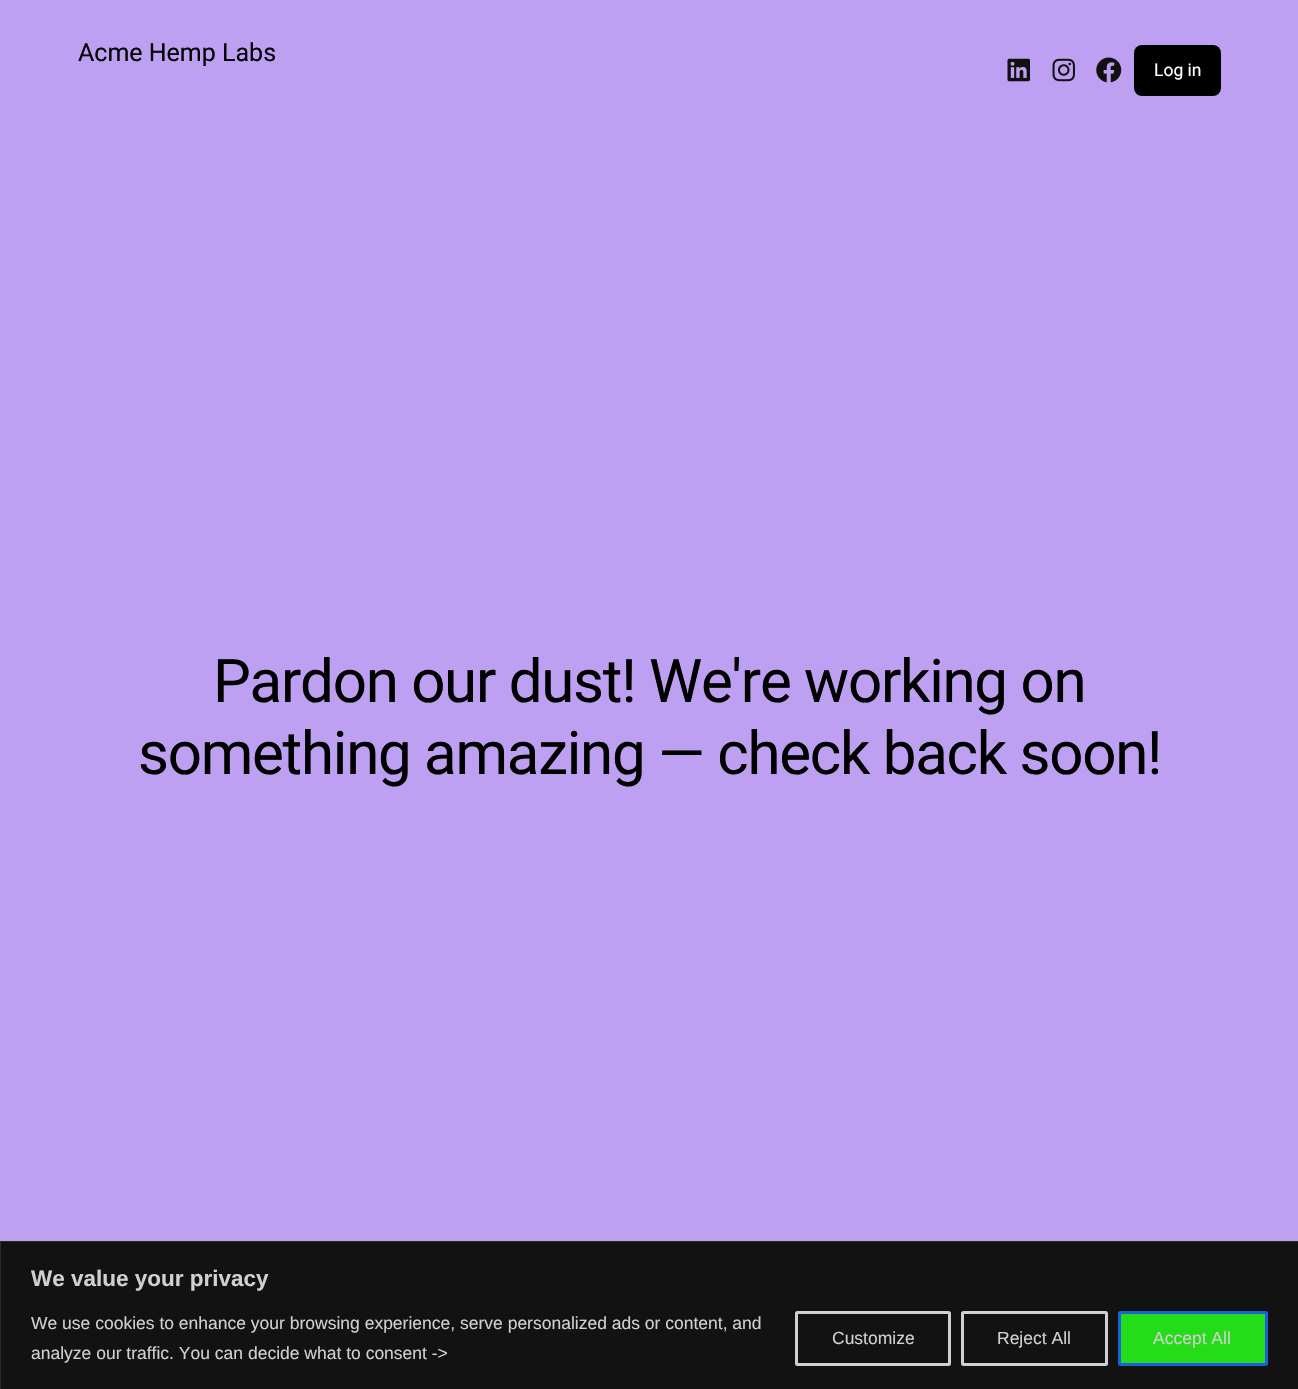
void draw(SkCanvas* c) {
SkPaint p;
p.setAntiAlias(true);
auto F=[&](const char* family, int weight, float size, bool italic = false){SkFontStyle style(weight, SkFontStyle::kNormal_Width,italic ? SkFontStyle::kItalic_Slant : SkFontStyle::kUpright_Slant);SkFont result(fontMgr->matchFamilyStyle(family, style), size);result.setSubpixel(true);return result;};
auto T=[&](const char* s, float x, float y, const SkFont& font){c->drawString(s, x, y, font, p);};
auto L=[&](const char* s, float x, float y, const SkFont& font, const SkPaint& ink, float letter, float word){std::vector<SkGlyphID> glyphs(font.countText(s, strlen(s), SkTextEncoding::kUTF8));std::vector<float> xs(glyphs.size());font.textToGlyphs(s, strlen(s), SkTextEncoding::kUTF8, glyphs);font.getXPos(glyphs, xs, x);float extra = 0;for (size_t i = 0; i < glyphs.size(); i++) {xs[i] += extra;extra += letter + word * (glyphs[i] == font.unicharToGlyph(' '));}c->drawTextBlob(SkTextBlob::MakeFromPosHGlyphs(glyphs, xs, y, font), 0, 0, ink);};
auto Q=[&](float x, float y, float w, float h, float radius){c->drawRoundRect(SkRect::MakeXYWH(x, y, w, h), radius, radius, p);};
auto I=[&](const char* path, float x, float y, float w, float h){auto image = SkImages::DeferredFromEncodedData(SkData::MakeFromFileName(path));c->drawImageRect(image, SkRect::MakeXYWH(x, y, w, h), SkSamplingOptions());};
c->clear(0xffbea0f2);
auto f1 = F("Roboto",400,25);
p.setColor(0xff000000);
T("Acme Hemp Labs",78,61,f1);
I("1.png",1007,58,23,24);
I("2.png",1052,58,23,24);
I("3.png",1096,57,26,26);
Q(1134,45,87,51,8);
auto f2 = F("Roboto",400,17.5);
p.setColor(0xffffffff);
T("Log in",1154,76,f2);
auto f3 = F("Roboto",400,60);
p.setColor(0xff000000);
L("Pardon our dust! We're working on",213,702,f3,p,-1.25,0);
L("something amazing — check back soon!",138,774,f3,p,-1.25,0);
p.setColor(0x4dacabab);
p.setMaskFilter(SkMaskFilter::MakeBlur(kNormal_SkBlurStyle, 6));
c->drawRect(SkRect::MakeXYWH(0,1240,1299,149),p);
p.setMaskFilter(nullptr);
p.setColor(0xff121212);
c->drawRect(SkRect::MakeXYWH(.5,1241.5,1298,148),p);
p.setStroke(true);
p.setStrokeWidth(1);
p.setColor(0xff2a2a2a);
c->drawRect(SkRect::MakeXYWH(.5,1241.5,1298,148),p);
auto f4 = F("Liberation Sans",700,22.5);
p.setStroke(false);
p.setColor(0xffd0d0d0);
T("We value your privacy",31,1286,f4);
auto f5 = F("Liberation Sans",400,17.5);
T("We use cookies to enhance your browsing experience, serve personalized ads or content, and",31,1329,f5);
T("analyze our traffic. You can decide what to consent ->",31,1359,f5);
p.setStroke(true);
p.setStrokeWidth(3);
c->drawRoundRect(SkRect::MakeXYWH(796.5,1312.5,153,52),1,1,p);
p.setStroke(false);
T("Customize",832,1344,f5);
p.setStroke(true);
c->drawRoundRect(SkRect::MakeXYWH(962.5,1312.5,144,52),1,1,p);
p.setStroke(false);
T("Reject All",997,1344,f5);
p.setColor(0xff25dc18);
c->drawRoundRect(SkRect::MakeXYWH(1119.5,1312.5,147,52),1,1,p);
p.setStroke(true);
p.setColor(0xff1863dc);
c->drawRoundRect(SkRect::MakeXYWH(1119.5,1312.5,147,52),1,1,p);
p.setStroke(false);
p.setColor(0xffd0d0d0);
T("Accept All",1153,1344,f5);
}
